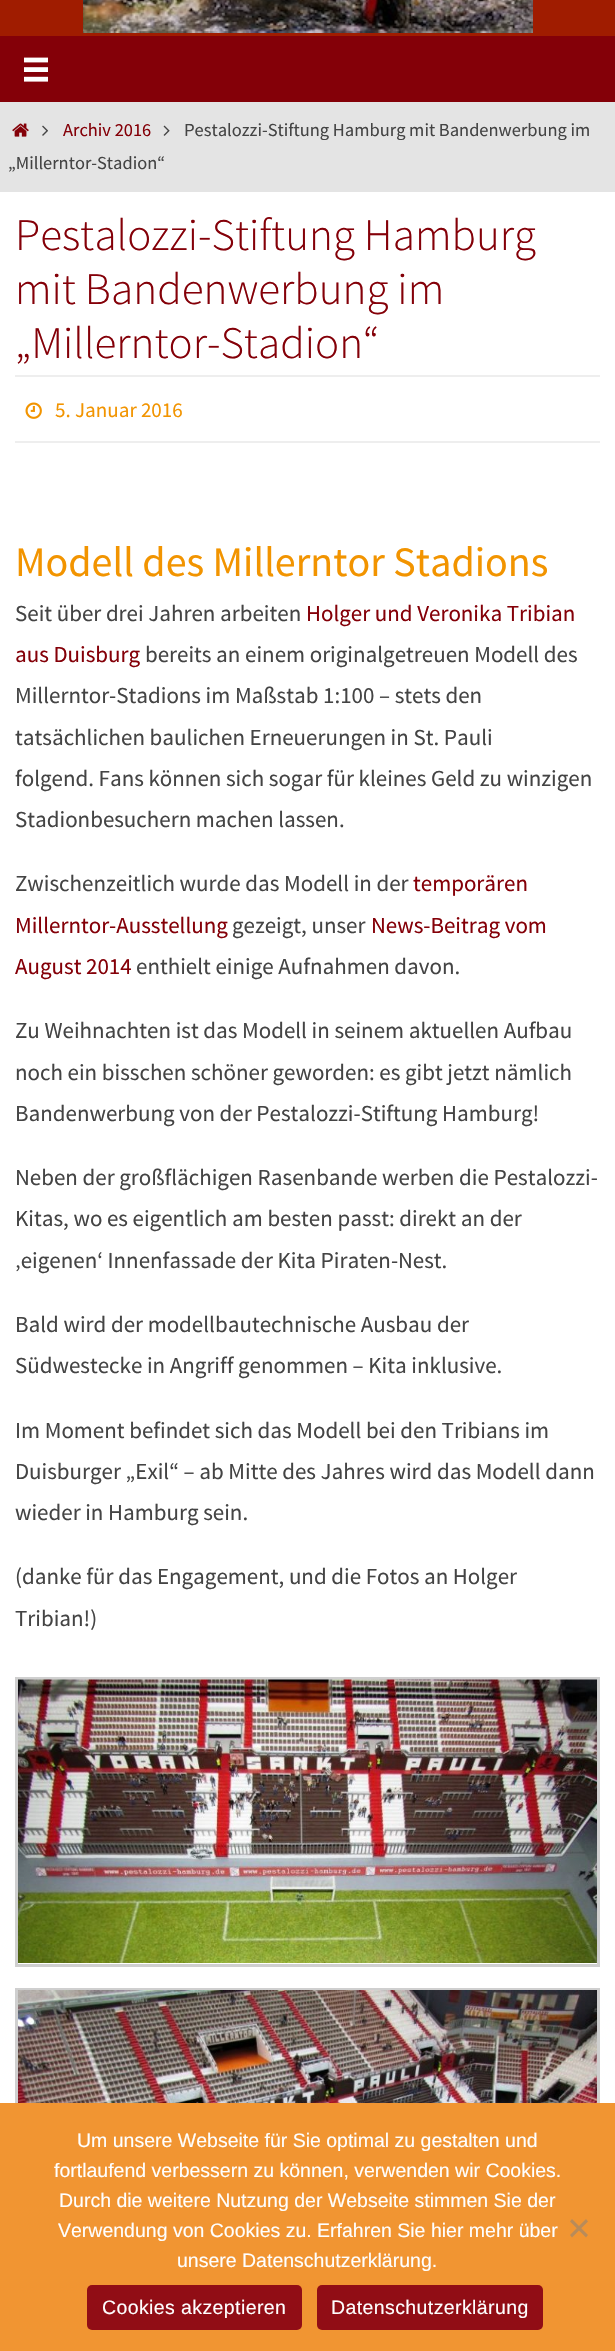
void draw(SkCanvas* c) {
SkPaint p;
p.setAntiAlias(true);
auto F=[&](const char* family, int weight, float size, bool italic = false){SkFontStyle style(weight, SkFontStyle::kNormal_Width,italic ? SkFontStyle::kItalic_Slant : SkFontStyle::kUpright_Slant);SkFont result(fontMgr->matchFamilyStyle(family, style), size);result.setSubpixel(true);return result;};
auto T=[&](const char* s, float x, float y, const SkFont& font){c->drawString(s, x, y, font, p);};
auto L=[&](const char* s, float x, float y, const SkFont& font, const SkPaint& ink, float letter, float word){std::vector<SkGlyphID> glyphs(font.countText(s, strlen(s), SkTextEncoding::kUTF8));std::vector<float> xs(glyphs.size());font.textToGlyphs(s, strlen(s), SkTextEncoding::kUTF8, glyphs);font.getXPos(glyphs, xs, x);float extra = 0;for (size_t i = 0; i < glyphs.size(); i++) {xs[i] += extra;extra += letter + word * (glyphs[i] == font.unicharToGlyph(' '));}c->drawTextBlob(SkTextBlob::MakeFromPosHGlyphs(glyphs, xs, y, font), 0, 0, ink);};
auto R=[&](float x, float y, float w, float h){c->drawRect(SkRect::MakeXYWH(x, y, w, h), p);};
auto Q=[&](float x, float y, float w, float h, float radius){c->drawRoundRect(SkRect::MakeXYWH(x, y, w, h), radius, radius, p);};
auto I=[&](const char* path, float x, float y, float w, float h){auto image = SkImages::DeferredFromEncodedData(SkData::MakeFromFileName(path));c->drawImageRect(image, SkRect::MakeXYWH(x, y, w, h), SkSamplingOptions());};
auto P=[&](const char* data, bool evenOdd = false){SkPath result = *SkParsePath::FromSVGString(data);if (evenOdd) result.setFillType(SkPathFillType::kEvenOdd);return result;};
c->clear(0xffa01c00);
I("1.png",83,0,450,33);
p.setColor(0xff840008);
R(0,36,615,66);
I("2.png",24,57,24,25);
p.setColor(0xffe4e4e4);
R(0,102,615,90);
I("3.png",12,123,17,14);
I("4.png",42,125,6,11);
auto f1 = F("Source Sans Pro",400,18.4);
p.setColor(0xff840008);
T("Archiv 2016",63,136,f1);
I("5.png",163,125,7,11);
p.setColor(0xff444444);
T("Pestalozzi-Stiftung Hamburg mit Bandenwerbung im",184,136,f1);
T("„Millerntor-Stadion“",8,169,f1);
p.setColor(0xffffffff);
R(0,192,615,1911);
auto f2 = F("Source Sans Pro",300,45);
p.setColor(0xff840008);
T("Pestalozzi-Stiftung Hamburg",15,250,f2);
T("mit Bandenwerbung im",15,304,f2);
T("„Millerntor-Stadion“",15,358,f2);
p.setColor(0xffeeeeee);
R(15,375,585,2);
R(15,441,585,2);
I("6.png",25,402,17,17);
auto f3 = F("Source Sans Pro",400,21);
p.setColor(0xfff29400);
T("5. Januar 2016",55,417,f3);
auto f4 = F("Source Sans Pro",400,42);
T("Modell des Millerntor Stadions",15,576,f4);
auto f5 = F("Source Sans Pro",400,22.95);
p.setColor(0xff444444);
T("Seit über drei Jahren arbeiten",15,621,f5);
p.setColor(0xff840008);
T("Holger und Veronika Tribian",306,621,f5);
T("aus Duisburg",15,662,f5);
p.setColor(0xff444444);
T("bereits an einem originalgetreuen Modell des",145,662,f5);
T("Millerntor-Stadions im Maßstab 1:100 – stets den",15,703,f5);
T("tatsächlichen baulichen Erneuerungen in St. Pauli",15,745,f5);
T("folgend. Fans können sich sogar für kleines Geld zu winzigen",15,786,f5);
T("Stadionbesuchern machen lassen.",15,827,f5);
T("Zwischenzeitlich wurde das Modell in der",15,891,f5);
p.setColor(0xff840008);
T("temporären",413,891,f5);
T("Millerntor-Ausstellung",15,933,f5);
p.setColor(0xff444444);
T("gezeigt, unser",232,933,f5);
p.setColor(0xff840008);
T("News-Beitrag vom",371,933,f5);
T("August 2014",15,974,f5);
p.setColor(0xff444444);
T("enthielt einige Aufnahmen davon.",136,974,f5);
T("Zu Weihnachten ist das Modell in seinem aktuellen Aufbau",15,1038,f5);
T("noch ein bisschen schöner geworden: es gibt jetzt nämlich",15,1080,f5);
T("Bandenwerbung von der Pestalozzi-Stiftung Hamburg!",15,1121,f5);
T("Neben der großflächigen Rasenbande werben die Pestalozzi-",15,1185,f5);
T("Kitas, wo es eigentlich am besten passt: direkt an der",15,1226,f5);
T("‚eigenen‘ Innenfassade der Kita Piraten-Nest.",15,1268,f5);
T("Bald wird der modellbautechnische Ausbau der",15,1332,f5);
T("Südwestecke in Angriff genommen – Kita inklusive.",15,1373,f5);
T("Im Moment befindet sich das Modell bei den Tribians im",15,1438,f5);
T("Duisburger „Exil“ – ab Mitte des Jahres wird das Modell dann",15,1479,f5);
T("wieder in Hamburg sein.",15,1520,f5);
T("(danke für das Engagement, und die Fotos an Holger",15,1584,f5);
T("Tribian!)",15,1626,f5);
p.setStroke(true);
p.setStrokeWidth(3);
p.setColor(0xffcfcfcf);
c->drawRect(SkRect::MakeXYWH(16.5,1678.5,582,287),p);
I("7.png",18,1679,579,284);
c->drawRect(SkRect::MakeXYWH(16.5,1989.5,582,327),p);
I("8.png",18,1990,579,113);
p.setStroke(false);
p.setColor(0xfff19532);
R(0,2103,615,248);
auto f6 = F("Liberation Sans",400,19.5);
p.setColor(0xffffffff);
T("Um unsere Webseite für Sie optimal zu gestalten und",77,2147,f6);
T("fortlaufend verbessern zu können, verwenden wir Cookies.",54,2177,f6);
T("Durch die weitere Nutzung der Webseite stimmen Sie der",59,2207,f6);
T("Verwendung von Cookies zu. Erfahren Sie hier mehr über",58,2237,f6);
T("unsere Datenschutzerklärung.",177,2267,f6);
p.setColor(0xffb98b59);
c->drawPath(P("M586 2219l2 2.5l-16 16l-2-2.5z"),p);
c->drawPath(P("M570 2221.5l2-2.5l16 16l-2 2.5z"),p);
p.setColor(0xff910d15);
Q(87,2285,215,45,5);
p.setColor(0xffffffff);
L("Cookies akzeptieren",102,2314,f6,p,.4,0);
p.setColor(0xff910d15);
Q(317,2285,226,45,5);
p.setColor(0xffffffff);
L("Datenschutzerklärung",331,2314,f6,p,.4,0);
}
